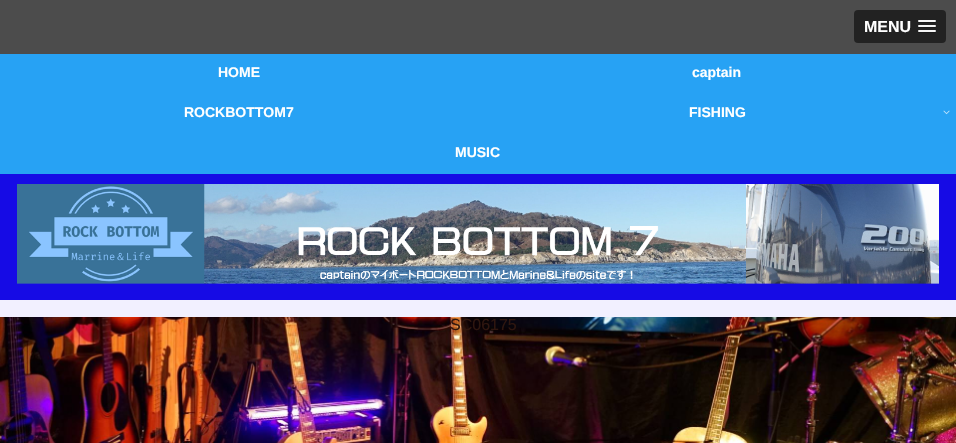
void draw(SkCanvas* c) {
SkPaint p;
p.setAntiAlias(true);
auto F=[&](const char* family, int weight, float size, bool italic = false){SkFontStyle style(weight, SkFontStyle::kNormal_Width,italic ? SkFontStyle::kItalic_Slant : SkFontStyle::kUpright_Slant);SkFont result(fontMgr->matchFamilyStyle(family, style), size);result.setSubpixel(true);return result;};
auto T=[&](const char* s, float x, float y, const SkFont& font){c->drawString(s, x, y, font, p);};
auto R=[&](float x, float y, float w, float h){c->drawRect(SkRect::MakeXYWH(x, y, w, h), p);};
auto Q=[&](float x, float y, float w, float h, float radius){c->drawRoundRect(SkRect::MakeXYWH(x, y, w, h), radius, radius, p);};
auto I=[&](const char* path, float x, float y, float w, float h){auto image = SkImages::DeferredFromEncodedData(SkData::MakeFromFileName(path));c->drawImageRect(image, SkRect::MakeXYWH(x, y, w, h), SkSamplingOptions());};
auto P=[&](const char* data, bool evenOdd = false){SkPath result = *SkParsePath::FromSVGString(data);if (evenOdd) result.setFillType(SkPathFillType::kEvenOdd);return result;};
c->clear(0xfff2f0ff);
p.setColor(0xff4c4c4c);
R(0,0,956,54);
p.setColor(0xff222222);
Q(854,10,92,33,4);
auto f1 = F("Liberation Sans",700,16);
p.setColor(0xffffffff);
T("MENU",864,32,f1);
p.setColor(0xff1a1a1a);
c->drawPath(P("M918 21.5c-1 2 3.5 1.5 3.5 1.5h11c0 0 4.5 .5 3.5-1.5c-1 1-7.5 .5-9 .5c-1.5 0-8 .5-9-.5z"),p);
p.setColor(0xfff5f5f5);
Q(918,20,18,2,1);
p.setColor(0xff1a1a1a);
c->drawPath(P("M918 26.5c-1 2 3.5 1.5 3.5 1.5h11c0 0 4.5 .5 3.5-1.5c-1 1-7.5 .5-9 .5c-1.5 0-8 .5-9-.5z"),p);
p.setColor(0xfff5f5f5);
Q(918,25,18,2,1);
p.setColor(0xff1a1a1a);
c->drawPath(P("M918 31.5c-1 2 3.5 1.5 3.5 1.5h11c0 0 4.5 .5 3.5-1.5c-1 1-7.5 .5-9 .5c-1.5 0-8 .5-9-.5z"),p);
p.setColor(0xfff5f5f5);
Q(918,30,18,2,1);
p.setColor(0xff160be5);
R(0,174,956,126);
p.setColor(0xff27a2f4);
R(0,54,956,120);
auto f2 = F("Liberation Sans",700,14);
p.setColor(0xffffffff);
T("HOME",218,77,f2);
T("captain",692,77,f2);
T("ROCKBOTTOM7",184,117,f2);
T("FISHING",689,117,f2);
I("1.png",943,110,7,5);
T("MUSIC",455,157,f2);
I("2.png",17,184,922,100);
I("3.png",0,317,956,126);
auto f3 = F("Liberation Sans",400,16);
p.setColor(0xff2f160f);
T("SC06175",450,330,f3);
}
